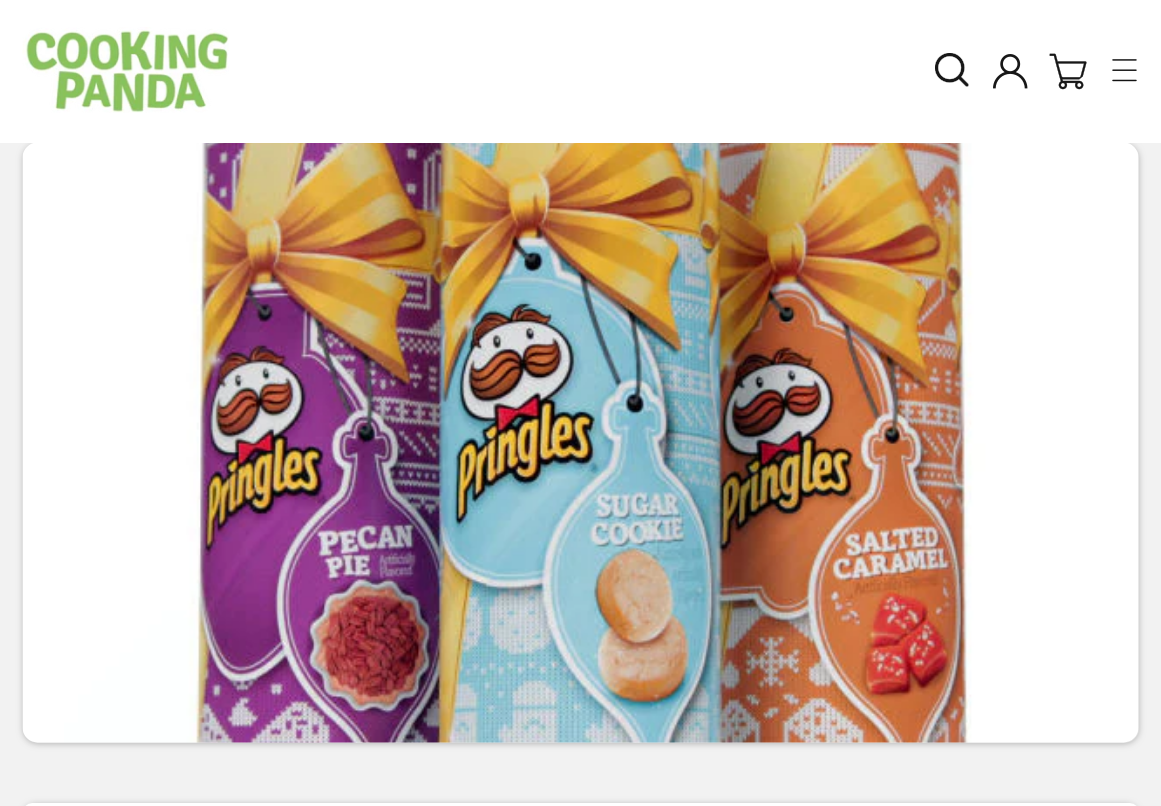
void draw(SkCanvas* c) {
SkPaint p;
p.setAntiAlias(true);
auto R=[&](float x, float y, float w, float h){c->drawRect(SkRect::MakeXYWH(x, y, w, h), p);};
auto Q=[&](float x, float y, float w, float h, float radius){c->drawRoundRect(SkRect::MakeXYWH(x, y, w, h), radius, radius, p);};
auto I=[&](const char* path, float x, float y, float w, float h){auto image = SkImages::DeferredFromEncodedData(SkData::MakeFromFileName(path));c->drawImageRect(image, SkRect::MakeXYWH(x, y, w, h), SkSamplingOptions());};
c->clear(0xfff2f2f2);
p.setColor(0x40000000);
p.setMaskFilter(SkMaskFilter::MakeBlur(kNormal_SkBlurStyle, 3));
c->drawRoundRect(SkRect::MakeXYWH(23,144,1116,600),15,15,p);
p.setMaskFilter(nullptr);
p.setColor(0xffffffff);
R(0,0,1161,143);
I("1.png",22,27,207,86);
I("2.png",935,53,34,34);
I("3.png",993,54,35,35);
I("4.png",1049,53,38,37);
I("5.png",1112,59,25,23);
p.setColor(0xfff9f9f9);
Q(23,143,1116,600,15);
p.setColor(0x1a121212);
Q(23,143,1116,600,15);
I("6.png",22,143,1117,600);
p.setColor(0x40000000);
p.setMaskFilter(SkMaskFilter::MakeBlur(kNormal_SkBlurStyle, 3));
c->drawRoundRect(SkRect::MakeXYWH(23,804,1116,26),15,15,p);
p.setMaskFilter(nullptr);
p.setColor(0xffffffff);
Q(23,803,1116,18,15);
}
